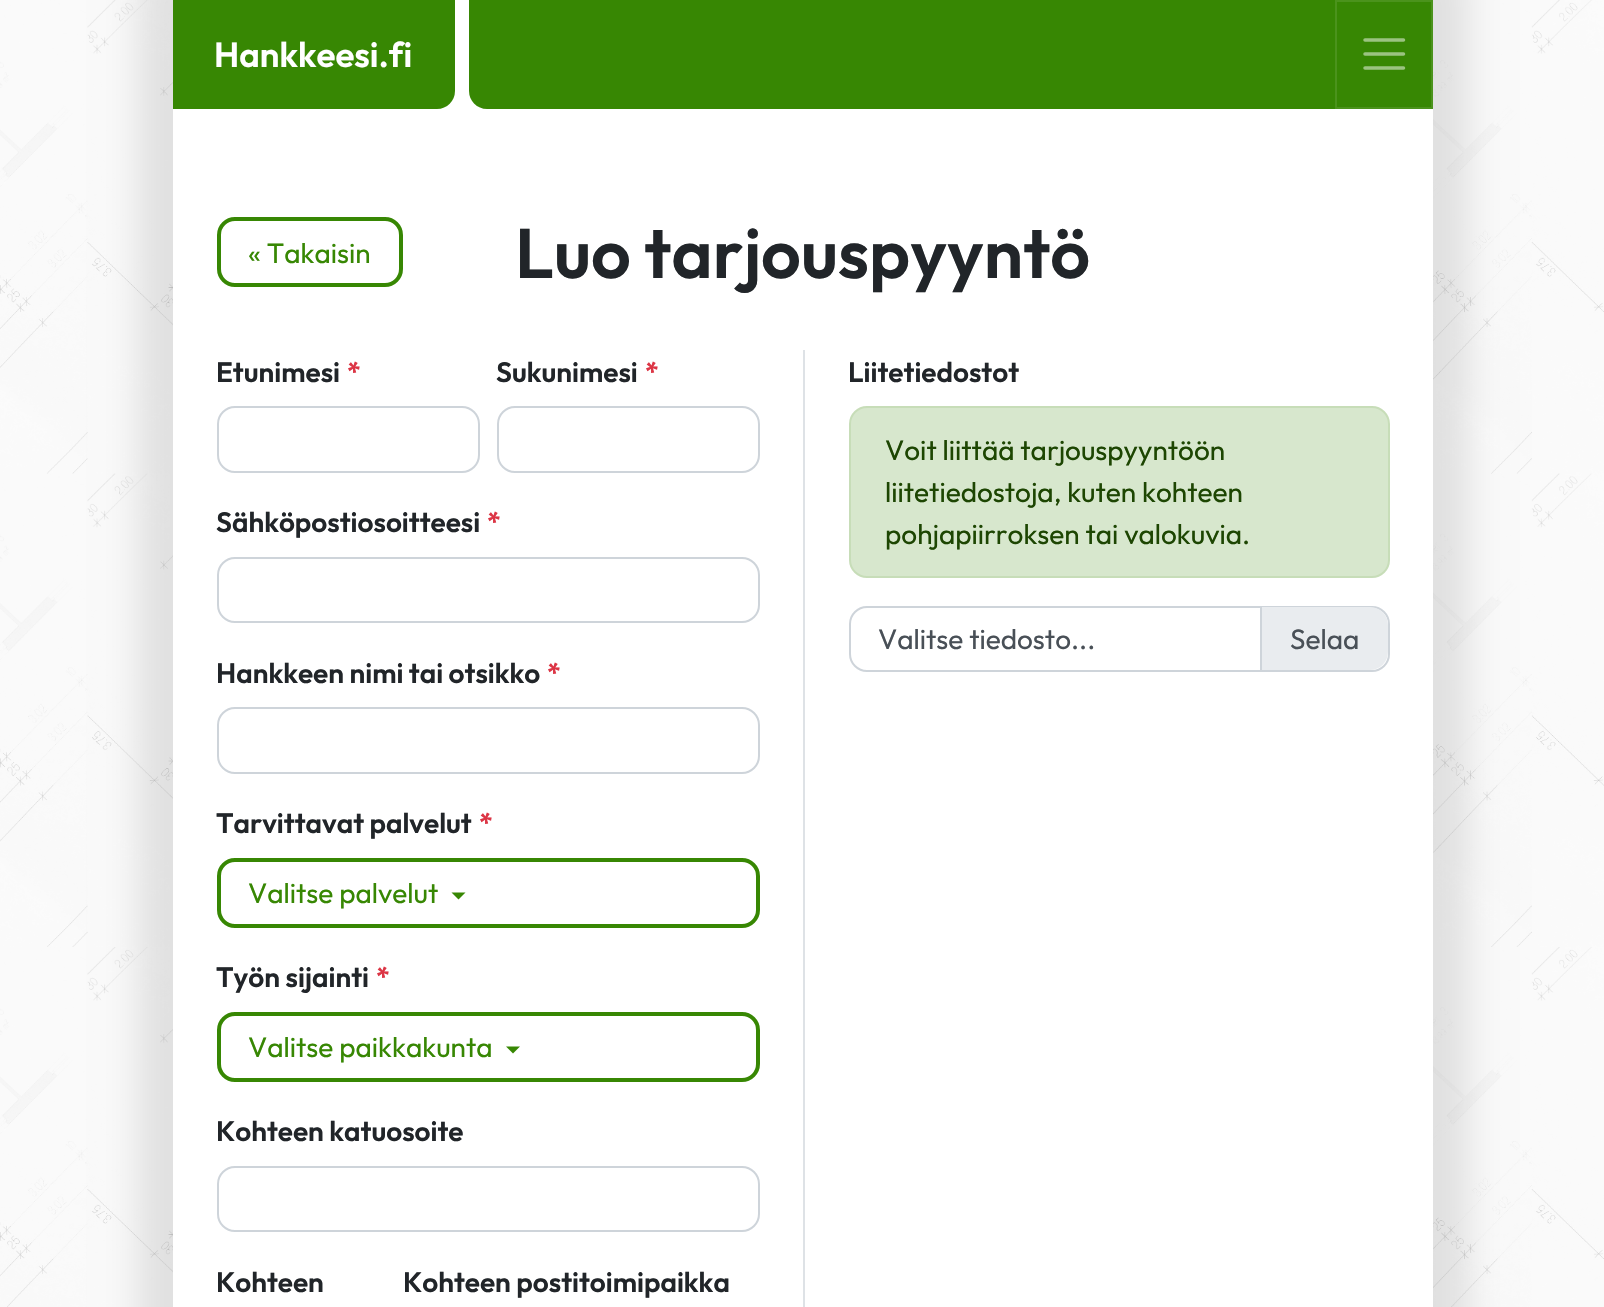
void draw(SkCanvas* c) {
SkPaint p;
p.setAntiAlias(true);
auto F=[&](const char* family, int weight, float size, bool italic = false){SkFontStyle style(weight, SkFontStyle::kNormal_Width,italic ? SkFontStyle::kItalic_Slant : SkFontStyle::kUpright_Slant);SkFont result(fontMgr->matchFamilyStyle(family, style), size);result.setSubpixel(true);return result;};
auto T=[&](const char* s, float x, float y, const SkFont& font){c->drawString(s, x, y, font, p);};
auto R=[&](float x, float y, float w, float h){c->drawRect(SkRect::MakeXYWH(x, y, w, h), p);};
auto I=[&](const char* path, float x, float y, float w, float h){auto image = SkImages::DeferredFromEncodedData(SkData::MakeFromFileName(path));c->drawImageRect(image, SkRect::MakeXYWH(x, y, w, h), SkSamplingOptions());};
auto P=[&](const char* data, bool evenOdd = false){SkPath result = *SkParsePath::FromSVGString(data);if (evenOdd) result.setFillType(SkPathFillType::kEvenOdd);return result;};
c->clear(0xffffffff);
I("1.png",0,0,1604,1307);
p.setColor(0x1a000000);
p.setMaskFilter(SkMaskFilter::MakeBlur(kNormal_SkBlurStyle, 17.5));
c->drawRect(SkRect::MakeXYWH(138,-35,1330,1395),p);
p.setMaskFilter(nullptr);
p.setColor(0xffffffff);
R(173,0,1260,1307);
p.setColor(0xff378703);
c->drawPath(P("M173 0h282v91c0 10-8 18-18 18h-264z"),p);
auto f1 = F("Outfit",600,35);
p.setColor(0xffffffff);
T("Hankkeesi.fi",214,67,f1);
p.setColor(0xff378703);
c->drawPath(P("M469 0h18v109c-10 0-18-8-18-18z"),p);
R(487,0,848,109);
c->drawRect(SkRect::MakeXYWH(1336,1,96,107),p);
p.setStroke(true);
p.setStrokeWidth(2);
p.setColor(0xff4b931c);
c->drawRect(SkRect::MakeXYWH(1336,1,96,107),p);
p.setStrokeWidth(3.5);
p.setStrokeCap(SkPaint::kRound_Cap);
p.setColor(0xff9bc381);
c->drawPath(P("M1365 40h38.5m-38.5 14h38.5m-38.5 14h38.5"),p);
p.setStrokeWidth(4);
p.setStrokeCap(SkPaint::kButt_Cap);
p.setColor(0xff378703);
c->drawRoundRect(SkRect::MakeXYWH(219,219,182,66),16,16,p);
auto f2 = F("Outfit",400,28);
p.setStroke(false);
T("« Takaisin",248,263,f2);
auto f3 = F("Outfit",600,70);
p.setColor(0xff212529);
T("Luo tarjouspyyntö",515,278,f3);
auto f4 = F("Outfit",600,28);
T("Etunimesi",216,382,f4);
p.setColor(0xffdc3545);
T("*",347,382,f4);
p.setStroke(true);
p.setStrokeWidth(2);
p.setColor(0xffced4da);
c->drawRoundRect(SkRect::MakeXYWH(218,407,261,65),17,17,p);
p.setStroke(false);
p.setColor(0xff212529);
T("Sukunimesi",496,382,f4);
p.setColor(0xffdc3545);
T("*",645,382,f4);
p.setStroke(true);
p.setColor(0xffced4da);
c->drawRoundRect(SkRect::MakeXYWH(498,407,261,65),17,17,p);
p.setStroke(false);
p.setColor(0xff212529);
T("Sähköpostiosoitteesi",216,532,f4);
p.setColor(0xffdc3545);
T("*",487,532,f4);
p.setStroke(true);
p.setColor(0xffced4da);
c->drawRoundRect(SkRect::MakeXYWH(218,558,541,64),17,17,p);
p.setStroke(false);
p.setColor(0xff212529);
T("Hankkeen nimi tai otsikko",216,683,f4);
p.setColor(0xffdc3545);
T("*",547,683,f4);
p.setStroke(true);
p.setColor(0xffced4da);
c->drawRoundRect(SkRect::MakeXYWH(218,708,541,65),17,17,p);
p.setStroke(false);
p.setColor(0xff212529);
T("Tarvittavat palvelut",216,833,f4);
p.setColor(0xffdc3545);
T("*",479,833,f4);
p.setStroke(true);
p.setStrokeWidth(4);
p.setColor(0xff378703);
c->drawRoundRect(SkRect::MakeXYWH(219,860,539,66),16,16,p);
p.setStroke(false);
T("Valitse palvelut",248,903,f2);
c->drawPath(P("M451.5 892.5h14l-7 7z"),p);
p.setColor(0xff212529);
T("Työn sijainti",216,987,f4);
p.setColor(0xffdc3545);
T("*",376,987,f4);
p.setStroke(true);
p.setColor(0xff378703);
c->drawRoundRect(SkRect::MakeXYWH(219,1014,539,66),16,16,p);
p.setStroke(false);
T("Valitse paikkakunta",248,1057,f2);
c->drawPath(P("M506 1046.5h14l-7 7z"),p);
p.setColor(0xff212529);
T("Kohteen katuosoite",216,1141,f4);
p.setStroke(true);
p.setStrokeWidth(2);
p.setColor(0xffced4da);
c->drawRoundRect(SkRect::MakeXYWH(218,1167,541,64),17,17,p);
p.setStroke(false);
p.setColor(0xff212529);
T("Kohteen",216,1292,f4);
T("Kohteen postitoimipaikka",403,1292,f4);
p.setColor(0xffdee2e6);
R(803,350,2,957);
p.setColor(0xff212529);
T("Liitetiedostot",848,382,f4);
p.setColor(0xffd7e7cd);
c->drawRoundRect(SkRect::MakeXYWH(850,407,539,170),17,17,p);
p.setStroke(true);
p.setColor(0xffc7ddb8);
c->drawRoundRect(SkRect::MakeXYWH(850,407,539,170),17,17,p);
p.setStroke(false);
p.setColor(0xff1d4602);
T("Voit liittää tarjouspyyntöön",885,460,f2);
T("liitetiedostoja, kuten kohteen",885,502,f2);
T("pohjapiirroksen tai valokuvia.",885,544,f2);
p.setStroke(true);
p.setColor(0xffced4da);
c->drawRoundRect(SkRect::MakeXYWH(850,607,539,64),17,17,p);
p.setStroke(false);
p.setColor(0xff495057);
T("Valitse tiedosto...",878,649,f2);
c->save();
c->clipPath(P("M867 607h505c9 0 16 7 16 16v31c0 9-7 16-16 16h-505c-9 0-16-7-16-16v-31c0-9 7-16 16-16z"),true);
p.setColor(0xffe9ecef);
c->drawPath(P("M1260 607h110c10 0 18 8 18 18v27c0 10-8 18-18 18h-110z"),p);
c->restore();
p.setColor(0xffced4da);
R(1260,607,2,63);
p.setColor(0xff495057);
T("Selaa",1290,649,f2);
}
